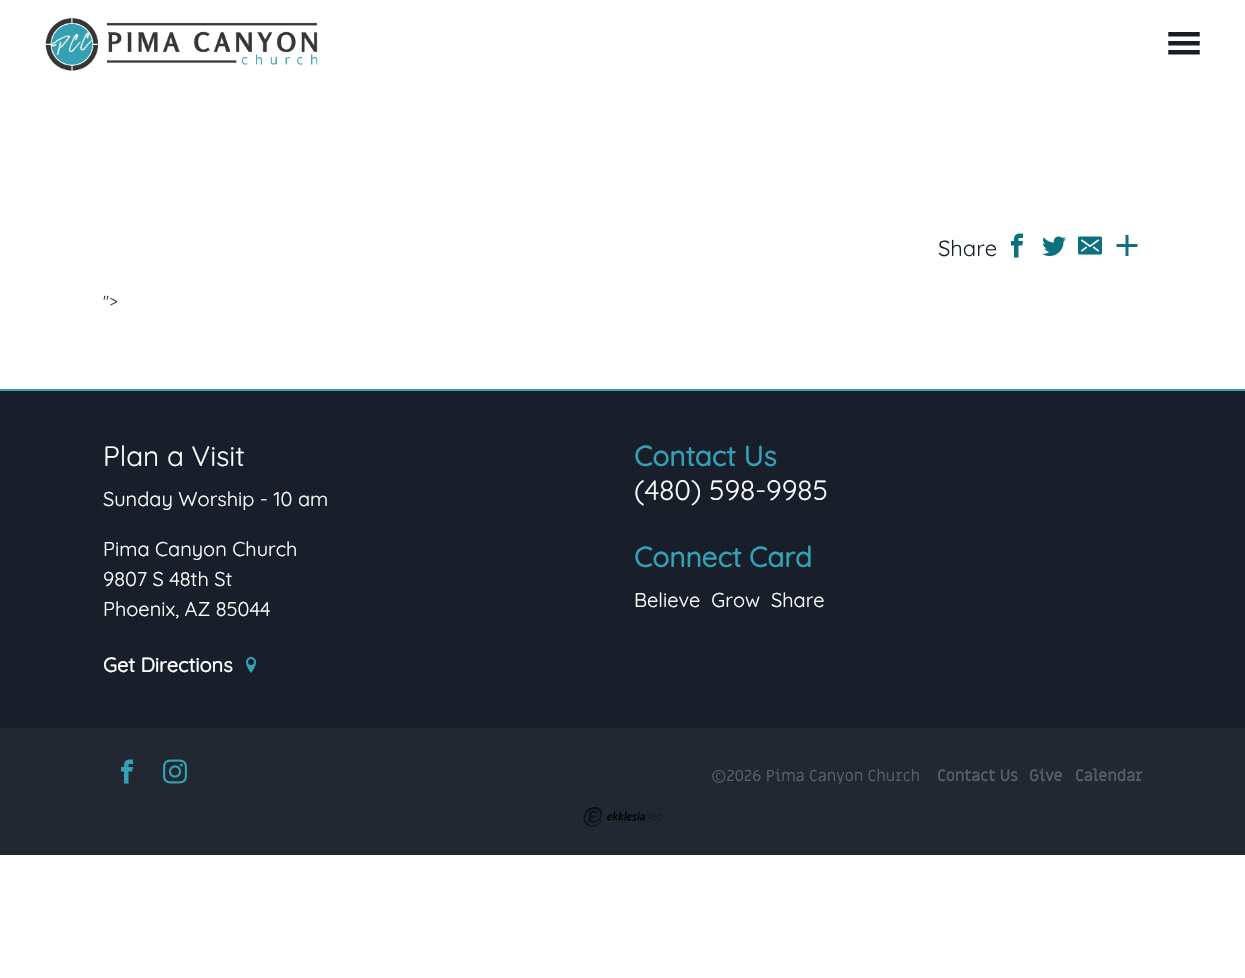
void draw(SkCanvas* c) {
SkPaint p;
p.setAntiAlias(true);
auto F=[&](const char* family, int weight, float size, bool italic = false){SkFontStyle style(weight, SkFontStyle::kNormal_Width,italic ? SkFontStyle::kItalic_Slant : SkFontStyle::kUpright_Slant);SkFont result(fontMgr->matchFamilyStyle(family, style), size);result.setSubpixel(true);return result;};
auto T=[&](const char* s, float x, float y, const SkFont& font){c->drawString(s, x, y, font, p);};
auto R=[&](float x, float y, float w, float h){c->drawRect(SkRect::MakeXYWH(x, y, w, h), p);};
auto I=[&](const char* path, float x, float y, float w, float h){auto image = SkImages::DeferredFromEncodedData(SkData::MakeFromFileName(path));c->drawImageRect(image, SkRect::MakeXYWH(x, y, w, h), SkSamplingOptions());};
c->clear(0xffffffff);
I("1.png",45,18,273,53);
I("2.png",1168,32,32,23);
auto f1 = F("Quicksand",300,22);
p.setColor(0xff181f2a);
T("Share",938,256,f1);
I("3.png",1011,233,12,25);
I("4.png",1042,236,24,20);
I("5.png",1078,236,24,19);
I("6.png",1116,235,22,21);
auto f2 = F("Quicksand",300,16);
p.setColor(0xff363636);
T("\">",103,307,f2);
p.setColor(0xff181f2a);
R(0,391,1245,337);
p.setColor(0xff35a0b3);
R(0,389,1245,2);
auto f3 = F("Quicksand",300,28);
p.setColor(0xffffffff);
T("Plan a Visit",103,466,f3);
auto f4 = F("Quicksand",300,20);
T("Sunday Worship - 10 am",103,506,f4);
T("Pima Canyon Church",103,556,f4);
T("9807 S 48th St",103,586,f4);
T("Phoenix, AZ 85044",103,616,f4);
auto f5 = F("Quicksand",700,20);
T("Get Directions",103,672,f5);
I("7.png",246,657,10,16);
auto f6 = F("Quicksand",700,28);
p.setColor(0xff35a0b3);
T("Contact Us",634,466,f6);
p.setColor(0xffffffff);
T("(480) 598-9985",634,500,f3);
p.setColor(0xff35a0b3);
T("Connect Card",634,567,f6);
p.setColor(0xffffffff);
T("Believe  Grow  Share",634,607,f4);
p.setColor(0xff212832);
R(0,728,1245,127);
I("8.png",121,759,12,25);
I("9.png",163,759,24,25);
auto f7 = F("Miriam Libre",400,16);
p.setColor(0xff595e65);
T("©2026 Pima Canyon Church",711,781,f7);
auto f8 = F("Miriam Libre",700,16);
T("Contact Us",937,781,f8);
T("Give",1029,781,f8);
T("Calendar",1075,781,f8);
I("10.png",583,807,80,20);
}
